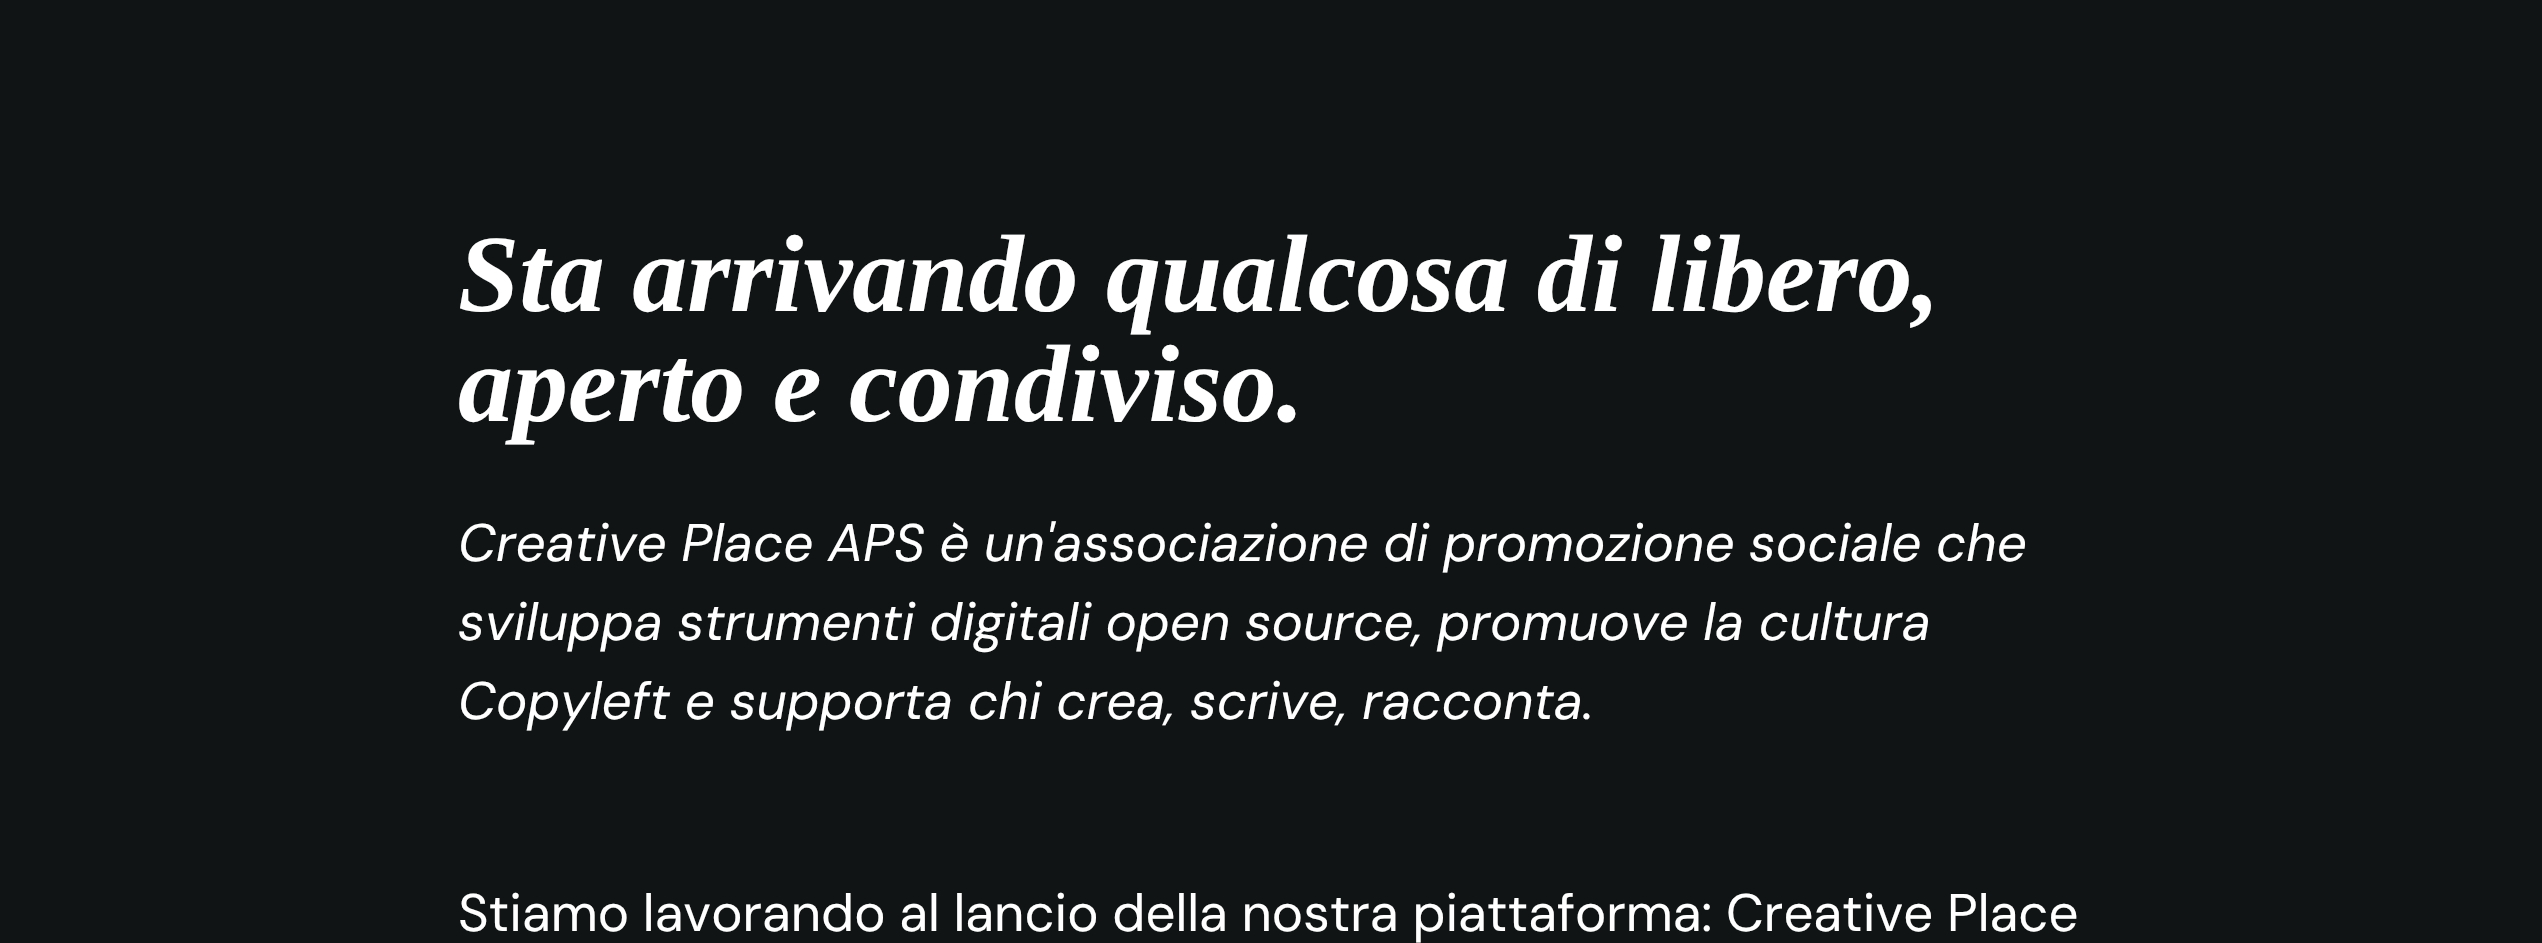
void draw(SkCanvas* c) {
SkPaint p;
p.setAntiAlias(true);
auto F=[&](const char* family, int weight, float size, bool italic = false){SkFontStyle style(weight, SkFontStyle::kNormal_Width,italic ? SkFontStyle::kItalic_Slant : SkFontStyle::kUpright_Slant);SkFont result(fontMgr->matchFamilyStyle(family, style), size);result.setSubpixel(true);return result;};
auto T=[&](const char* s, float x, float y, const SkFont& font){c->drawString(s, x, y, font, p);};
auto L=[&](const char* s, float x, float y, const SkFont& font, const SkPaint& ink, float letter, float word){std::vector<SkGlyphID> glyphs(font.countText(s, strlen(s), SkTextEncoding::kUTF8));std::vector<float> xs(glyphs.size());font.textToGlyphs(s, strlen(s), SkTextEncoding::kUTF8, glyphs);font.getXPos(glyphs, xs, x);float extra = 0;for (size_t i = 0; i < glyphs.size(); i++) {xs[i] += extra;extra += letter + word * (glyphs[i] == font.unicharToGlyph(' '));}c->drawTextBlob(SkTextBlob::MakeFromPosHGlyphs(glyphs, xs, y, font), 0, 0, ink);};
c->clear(0xff101414);
auto f1 = F("Tinos",700,110,true);
p.setColor(0xffffffff);
T("Sta arrivando qualcosa di libero,",458,311,f1);
T("aperto e condiviso.",458,421,f1);
auto f2 = F("DM Sans",400,52.8,true);
L("Creative Place APS è un'associazione di promozione sociale che",458,561,f2,p,0,-.25);
L("sviluppa strumenti digitali open source, promuove la cultura",458,640,f2,p,0,-.25);
T("Copyleft e supporta chi crea, scrive, racconta.",458,719,f2);
auto f3 = F("DM Sans",400,52.8);
L("Stiamo lavorando al lancio della nostra piattaforma: Creative Place",458,931,f3,p,0,-.25);
}
